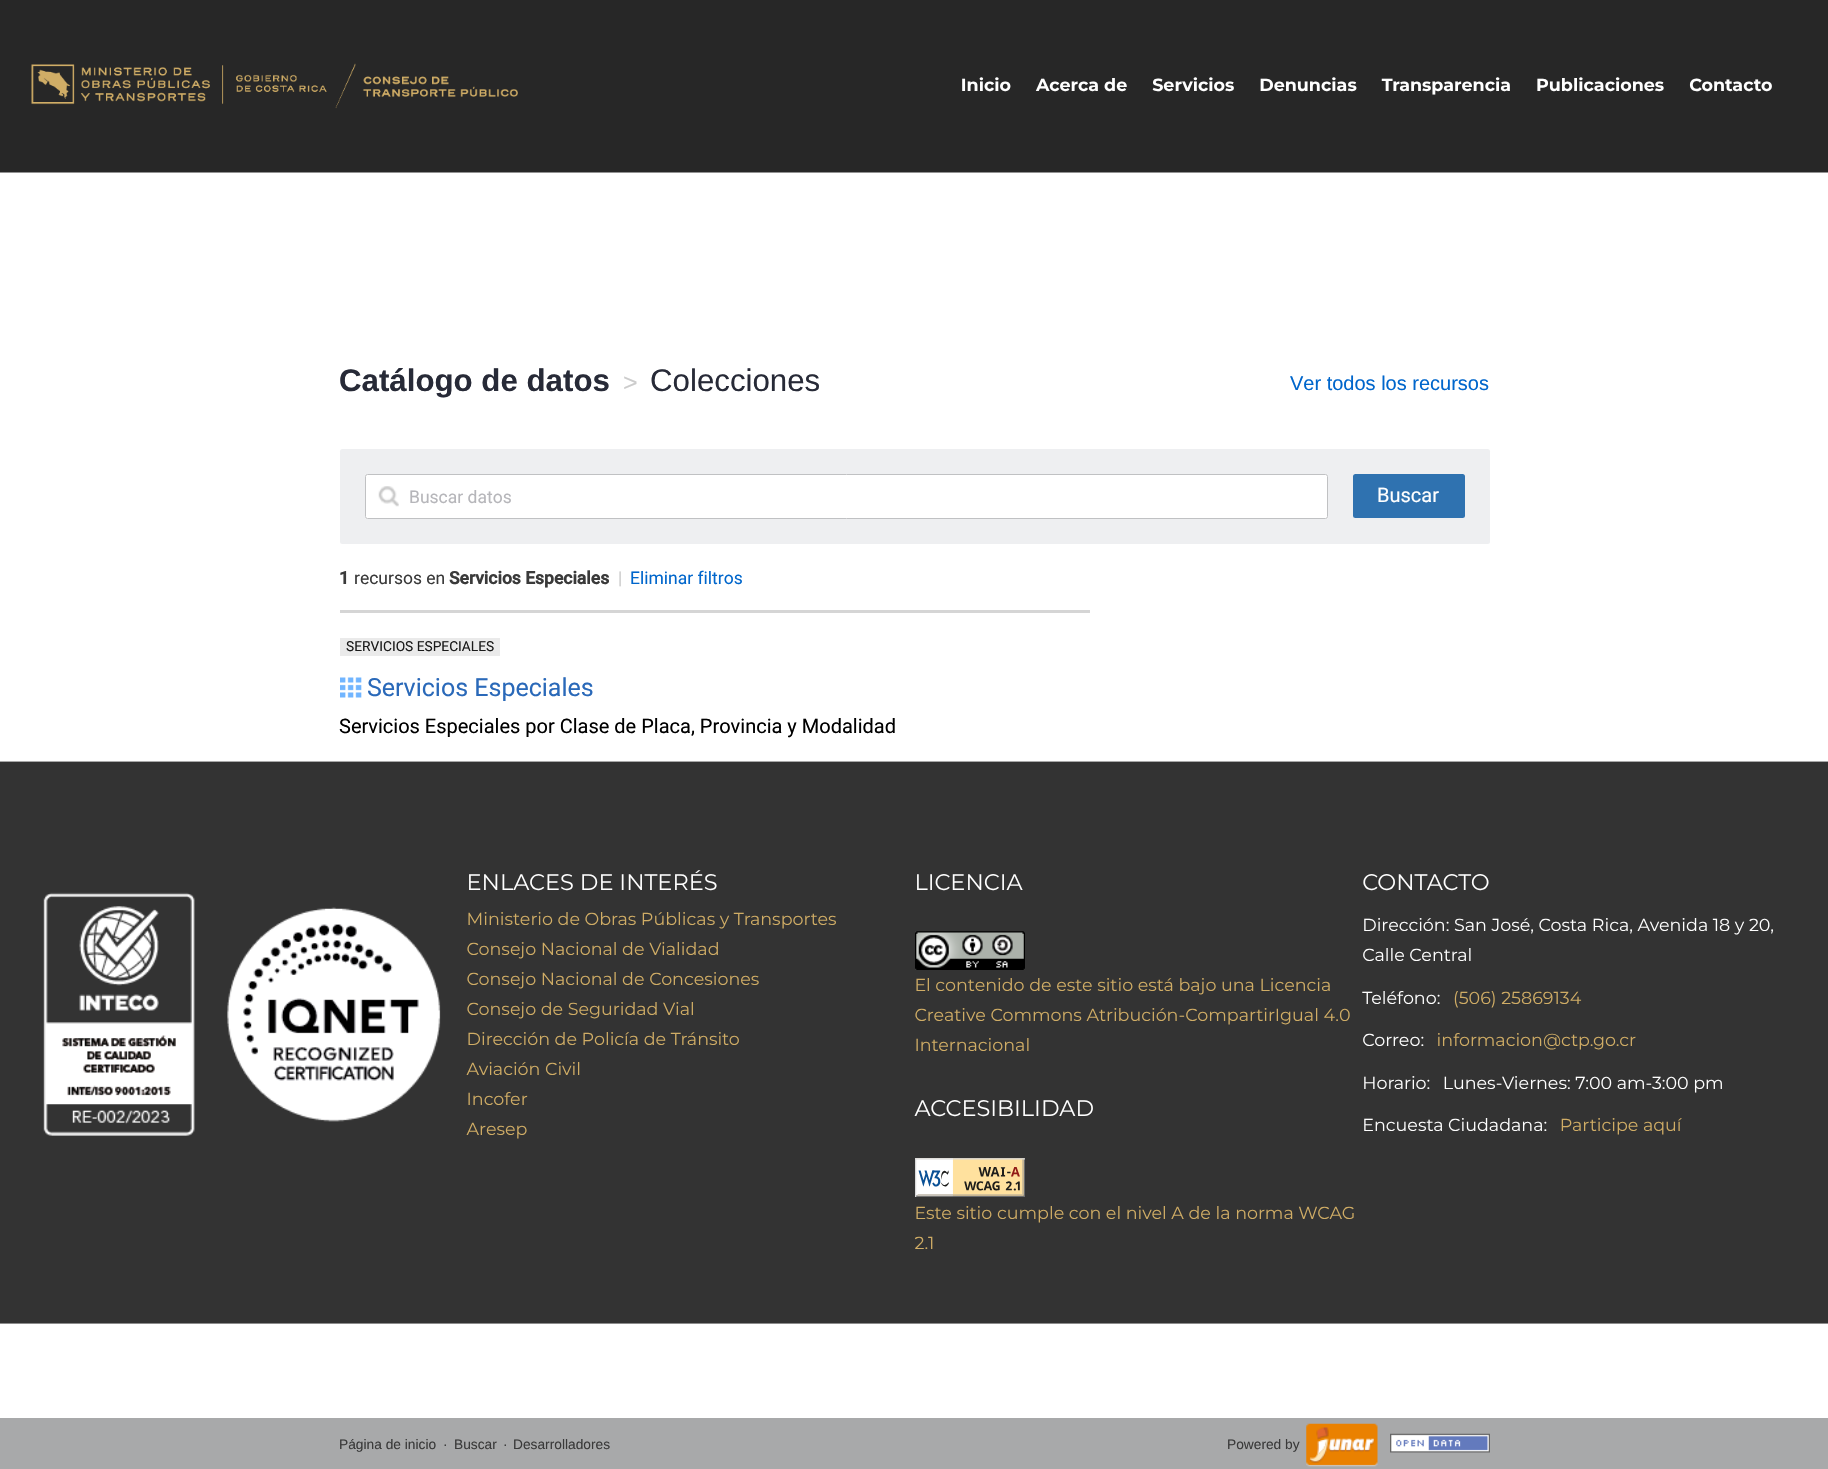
void draw(SkCanvas* c) {
SkPaint p;
p.setAntiAlias(true);
auto F=[&](const char* family, int weight, float size, bool italic = false){SkFontStyle style(weight, SkFontStyle::kNormal_Width,italic ? SkFontStyle::kItalic_Slant : SkFontStyle::kUpright_Slant);SkFont result(fontMgr->matchFamilyStyle(family, style), size);result.setSubpixel(true);return result;};
auto T=[&](const char* s, float x, float y, const SkFont& font){c->drawString(s, x, y, font, p);};
auto R=[&](float x, float y, float w, float h){c->drawRect(SkRect::MakeXYWH(x, y, w, h), p);};
auto Q=[&](float x, float y, float w, float h, float radius){c->drawRoundRect(SkRect::MakeXYWH(x, y, w, h), radius, radius, p);};
auto I=[&](const char* path, float x, float y, float w, float h){auto image = SkImages::DeferredFromEncodedData(SkData::MakeFromFileName(path));c->drawImageRect(image, SkRect::MakeXYWH(x, y, w, h), SkSamplingOptions());};
c->clear(0xffffffff);
I("1.png",0,0,1828,173);
auto f1 = F("Liberation Sans",700,31.25);
p.setColor(0xff272a37);
T("Catálogo de datos",339,391,f1);
auto f2 = F("Liberation Sans",400,25);
p.setColor(0xffcccccc);
T(">",623,391,f2);
auto f3 = F("Liberation Sans",400,31.25);
p.setColor(0xff272a37);
T("Colecciones",650,391,f3);
auto f4 = F("Liberation Sans",400,20);
p.setColor(0xff0066cc);
T("Ver todos los recursos",1290,390,f4);
p.setColor(0xffeeeff1);
Q(340,449,1150,95,2.5);
p.setColor(0xffffffff);
Q(365,474,963,45,2.5);
I("2.png",378,486,21,21);
p.setStroke(true);
p.setStrokeWidth(1);
p.setColor(0xffc0c1c3);
c->drawRoundRect(SkRect::MakeXYWH(365.5,474.5,962,44),2,2,p);
auto f5 = F("Roboto",400,17.5);
p.setStroke(false);
p.setColor(0xffb6b6ba);
T("Buscar datos",409,503,f5);
p.setColor(0xff2f72b0);
Q(1353,474,112,44,2.5);
auto f6 = F("Roboto",400,20);
p.setColor(0xffffffff);
T("Buscar",1377,502,f6);
auto f7 = F("Roboto",700,17.5);
p.setColor(0xff3a3a3a);
T("1",339,584,f7);
T("recursos en",354,584,f5);
T("Servicios Especiales",449,584,f7);
p.setColor(0xffcccccc);
T("|",618,584,f5);
p.setColor(0xff0066cc);
T("Eliminar filtros",630,584,f5);
p.setColor(0xffd5d5d5);
R(340,610,750,3);
p.setColor(0xffeaeaea);
R(340,638,160,18);
auto f8 = F("Roboto",400,13.75);
p.setColor(0xff1a1a1a);
T("SERVICIOS ESPECIALES",346,651,f8);
I("3.png",340,677,22,21);
auto f9 = F("Roboto",400,25);
p.setColor(0xff2a69b9);
T("Servicios Especiales",367,696,f9);
p.setColor(0xff000000);
T("Servicios Especiales por Clase de Placa, Provincia y Modalidad",339,733,f6);
I("4.png",0,761,1828,563);
p.setColor(0xffa8a9aa);
R(0,1418,1828,51);
auto f10 = F("Liberation Sans",400,13.75);
p.setColor(0xff3a3a3a);
T("Página de inicio",339,1449,f10);
T("·",443,1449,f10);
T("Buscar",454,1449,f10);
T("·",503,1449,f10);
T("Desarrolladores",513,1449,f10);
I("5.png",1306,1423,72,44);
T("Powered by",1227,1449,f10);
I("6.png",1390,1433,100,20);
}
